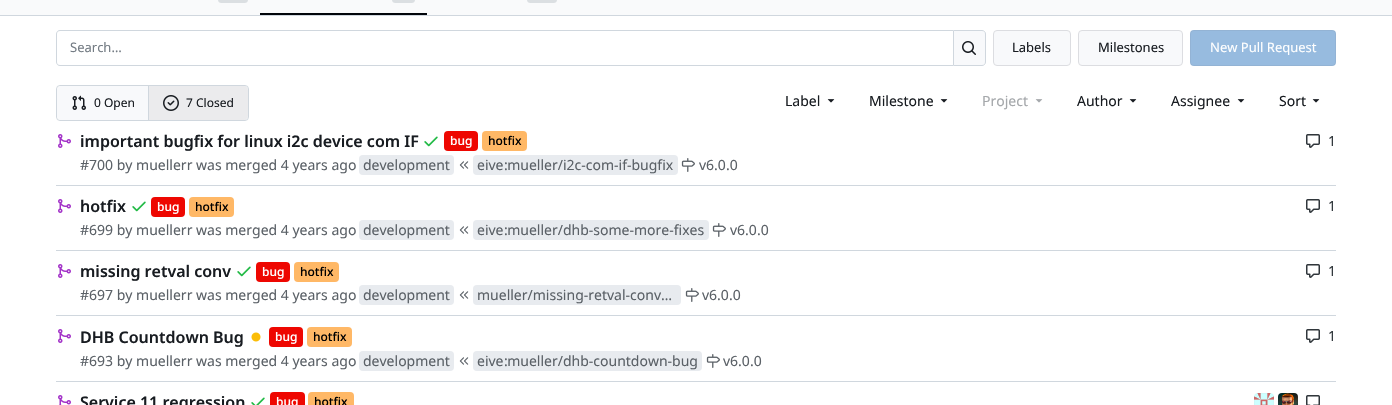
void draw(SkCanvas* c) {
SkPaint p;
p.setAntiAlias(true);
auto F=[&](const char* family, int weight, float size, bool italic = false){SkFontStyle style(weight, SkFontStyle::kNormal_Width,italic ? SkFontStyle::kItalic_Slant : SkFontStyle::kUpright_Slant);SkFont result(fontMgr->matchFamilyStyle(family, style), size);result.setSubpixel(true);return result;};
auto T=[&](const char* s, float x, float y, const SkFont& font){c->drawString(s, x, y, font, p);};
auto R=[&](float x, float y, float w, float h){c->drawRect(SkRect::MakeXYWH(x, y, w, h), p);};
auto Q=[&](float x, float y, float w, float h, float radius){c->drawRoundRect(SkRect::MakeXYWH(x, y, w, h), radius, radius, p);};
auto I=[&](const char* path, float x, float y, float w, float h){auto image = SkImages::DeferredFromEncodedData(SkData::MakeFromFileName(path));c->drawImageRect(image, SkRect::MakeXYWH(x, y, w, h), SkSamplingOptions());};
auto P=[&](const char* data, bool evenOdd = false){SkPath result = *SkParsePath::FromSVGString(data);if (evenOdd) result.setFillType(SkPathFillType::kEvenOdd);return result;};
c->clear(0xffffffff);
p.setColor(0xfff9fafb);
R(0,0,1392,15);
p.setColor(0xffdbdfe2);
Q(218,-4,30,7,4);
p.setColor(0xff01050a);
R(260,13,167,2);
p.setColor(0xffdbdfe2);
Q(392,-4,23,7,4);
Q(527,-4,30,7,4);
p.setColor(0xffd0d7de);
R(0,15,1392,1);
c->drawPath(P("M60 30h893v36h-893c-2 0-4-2-4-4v-28c0-2 2-4 4-4zm0 1h893v34h-893c-2 0-3-1-3-3v-28c0-2 1-3 3-3z",true),p);
auto f1 = F("Noto Sans",400,13);
p.setColor(0xff747c84);
T("Search…",70,52,f1);
p.setColor(0xfff8f9fb);
c->drawPath(P("M953.5 30.5h28.5c2 0 3.5 1.5 3.5 3.5v28c0 2-1.5 3.5-3.5 3.5h-28.5z"),p);
p.setStroke(true);
p.setStrokeWidth(1);
p.setColor(0xffd0d7de);
c->drawPath(P("M953.5 30.5h28.5c2 0 3.5 1.5 3.5 3.5v28c0 2-1.5 3.5-3.5 3.5h-28.5z"),p);
I("1.png",962,41,14,14);
p.setStroke(false);
p.setColor(0xfff8f9fb);
c->drawRoundRect(SkRect::MakeXYWH(993.5,30.5,77,35),3.5,3.5,p);
p.setStroke(true);
p.setColor(0xffdcdde1);
c->drawRoundRect(SkRect::MakeXYWH(993.5,30.5,77,35),3.5,3.5,p);
p.setStroke(false);
p.setColor(0xff181c21);
T("Labels",1012,52,f1);
p.setColor(0xfff8f9fb);
c->drawRoundRect(SkRect::MakeXYWH(1078.5,30.5,104,35),3.5,3.5,p);
p.setStroke(true);
p.setColor(0xffdcdde1);
c->drawRoundRect(SkRect::MakeXYWH(1078.5,30.5,104,35),3.5,3.5,p);
p.setStroke(false);
p.setColor(0xff181c21);
T("Milestones",1098,52,f1);
p.setColor(0xff97bbdf);
Q(1190,30,146,36,4);
p.setStroke(true);
p.setColor(0x1c73737f);
c->drawRoundRect(SkRect::MakeXYWH(1190.5,30.5,145,35),3.5,3.5,p);
p.setStroke(false);
p.setColor(0xffffffff);
T("New Pull Request",1210,52,f1);
p.setStroke(true);
p.setColor(0xffd0d7de);
c->drawRoundRect(SkRect::MakeXYWH(56.5,85.5,192,35),3.5,3.5,p);
p.setStroke(false);
p.setColor(0xfff8f9fb);
c->drawPath(P("M61 86h88v34h-88c-2 0-4-2-4-4v-26c0-2 2-4 4-4z"),p);
I("2.png",72,95,14,15);
auto f2 = F("Noto Sans",400,12);
p.setColor(0xff181c21);
T("0 Open",94,107,f2);
p.setColor(0xffd0d7de);
R(148,86,1,34);
p.setColor(0x14000017);
c->drawPath(P("M149 86h95c2 0 4 2 4 4v26c0 2-2 4-4 4h-95z"),p);
I("3.png",163,95,16,16);
p.setColor(0xff181c21);
T("7 Closed",186,107,f2);
auto f3 = F("Noto Sans",400,14);
T("Label",785,106,f3);
I("4.png",827,99,8,4);
T("Milestone",869,106,f3);
I("4.png",940,99,8,4);
p.setColor(0xffa5a8ab);
T("Project",982,106,f3);
I("5.png",1035,99,8,4);
p.setColor(0xff181c21);
T("Author",1077,106,f3);
I("4.png",1129,99,8,4);
T("Assignee",1171,106,f3);
I("4.png",1237,99,8,4);
T("Sort",1279,106,f3);
I("4.png",1312,99,8,4);
I("6.png",58,134,13,14);
auto f4 = F("Noto Sans",600,16);
T("important bugfix for linux i2c device com IF",80,147,f4);
I("7.png",424,136,14,11);
p.setColor(0xffee0701);
Q(444,131,34,20,4);
auto f5 = F("Noto Sans",500,12);
p.setColor(0xffffffff);
T("bug",450,145,f5);
p.setColor(0xffffb866);
Q(482,131,45,20,4);
p.setColor(0xff000000);
T("hotfix",488,145,f5);
p.setColor(0xff5b6167);
T("#700 by muellerr was merged 4 years ago",80,170,f3);
p.setColor(0xffe8ebef);
Q(359,155,95,20,4);
p.setColor(0xff5b6167);
T("development",363,170,f3);
I("8.png",459,161,10,8);
p.setColor(0xffe8ebef);
Q(473,155,205,20,4);
p.setColor(0xff5b6167);
T(":",504,170,f3);
T("eive mueller/i2c-com-if-bugfix",477,170,f3);
I("9.png",681,158,14,14);
T("v6.0.0",699,170,f3);
I("10.png",1306,134,14,14);
p.setColor(0xff30363b);
T("1",1328,146,f3);
p.setColor(0xffd0d7de);
R(56,185,1280,1);
I("6.png",58,199,13,14);
p.setColor(0xff181c21);
T("hotfix",80,212,f4);
I("7.png",132,201,14,11);
p.setColor(0xffee0701);
Q(151,197,34,20,4);
p.setColor(0xffffffff);
T("bug",157,211,f5);
p.setColor(0xffffb866);
Q(189,197,45,20,4);
p.setColor(0xff000000);
T("hotfix",195,211,f5);
p.setColor(0xff5b6167);
T("#699 by muellerr was merged 4 years ago",80,235,f3);
p.setColor(0xffe8ebef);
Q(359,220,95,20,4);
p.setColor(0xff5b6167);
T("development",363,235,f3);
I("8.png",459,226,10,8);
p.setColor(0xffe8ebef);
Q(473,220,236,20,4);
p.setColor(0xff5b6167);
T(":",504,235,f3);
T("eive mueller/dhb-some-more-fixes",477,235,f3);
I("9.png",712,223,14,14);
T("v6.0.0",730,235,f3);
I("10.png",1306,199,14,14);
p.setColor(0xff30363b);
T("1",1328,211,f3);
p.setColor(0xffd0d7de);
R(56,250,1280,1);
I("6.png",58,264,13,14);
p.setColor(0xff181c21);
T("missing retval conv",80,277,f4);
I("7.png",237,266,14,11);
p.setColor(0xffee0701);
Q(256,262,34,20,4);
p.setColor(0xffffffff);
T("bug",262,276,f5);
p.setColor(0xffffb866);
Q(294,262,45,20,4);
p.setColor(0xff000000);
T("hotfix",300,276,f5);
p.setColor(0xff5b6167);
T("#697 by muellerr was merged 4 years ago",80,300,f3);
p.setColor(0xffe8ebef);
Q(359,285,95,20,4);
p.setColor(0xff5b6167);
T("development",363,300,f3);
I("8.png",459,291,10,8);
p.setColor(0xffe8ebef);
Q(473,285,208,20,4);
p.setColor(0xff5b6167);
T("mueller/missing-retval-conv…",477,300,f3);
I("9.png",685,288,14,14);
T("v6.0.0",702,300,f3);
I("10.png",1306,264,14,14);
p.setColor(0xff30363b);
T("1",1328,276,f3);
p.setColor(0xffd0d7de);
R(56,315,1280,1);
I("6.png",58,329,13,14);
p.setColor(0xff181c21);
T("DHB Countdown Bug",80,343,f4);
I("11.png",251,332,10,10);
p.setColor(0xffee0701);
Q(269,327,34,20,4);
p.setColor(0xffffffff);
T("bug",275,341,f5);
p.setColor(0xffffb866);
Q(307,327,45,20,4);
p.setColor(0xff000000);
T("hotfix",313,341,f5);
p.setColor(0xff5b6167);
T("#693 by muellerr was merged 4 years ago",80,366,f3);
p.setColor(0xffe8ebef);
Q(359,351,95,20,4);
p.setColor(0xff5b6167);
T("development",363,366,f3);
I("8.png",459,357,10,8);
p.setColor(0xffe8ebef);
Q(473,351,229,20,4);
p.setColor(0xff5b6167);
T(":",504,366,f3);
T("eive mueller/dhb-countdown-bug",477,366,f3);
I("9.png",706,354,14,14);
T("v6.0.0",723,366,f3);
I("10.png",1306,329,14,14);
p.setColor(0xff30363b);
T("1",1328,341,f3);
p.setColor(0xffd0d7de);
R(56,381,1280,1);
I("12.png",58,395,13,10);
p.setColor(0xff181c21);
T("Service 11 regression",80,408,f4);
I("13.png",251,397,14,8);
p.setColor(0xffee0701);
Q(270,392,35,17,4);
p.setColor(0xffffffff);
T("bug",276,406,f5);
p.setColor(0xffffb866);
Q(308,392,46,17,4);
p.setColor(0xff000000);
T("hotfix",314,406,f5);
I("14.png",1254,393,20,12);
I("15.png",1278,393,20,12);
I("16.png",1306,395,14,10);
}
